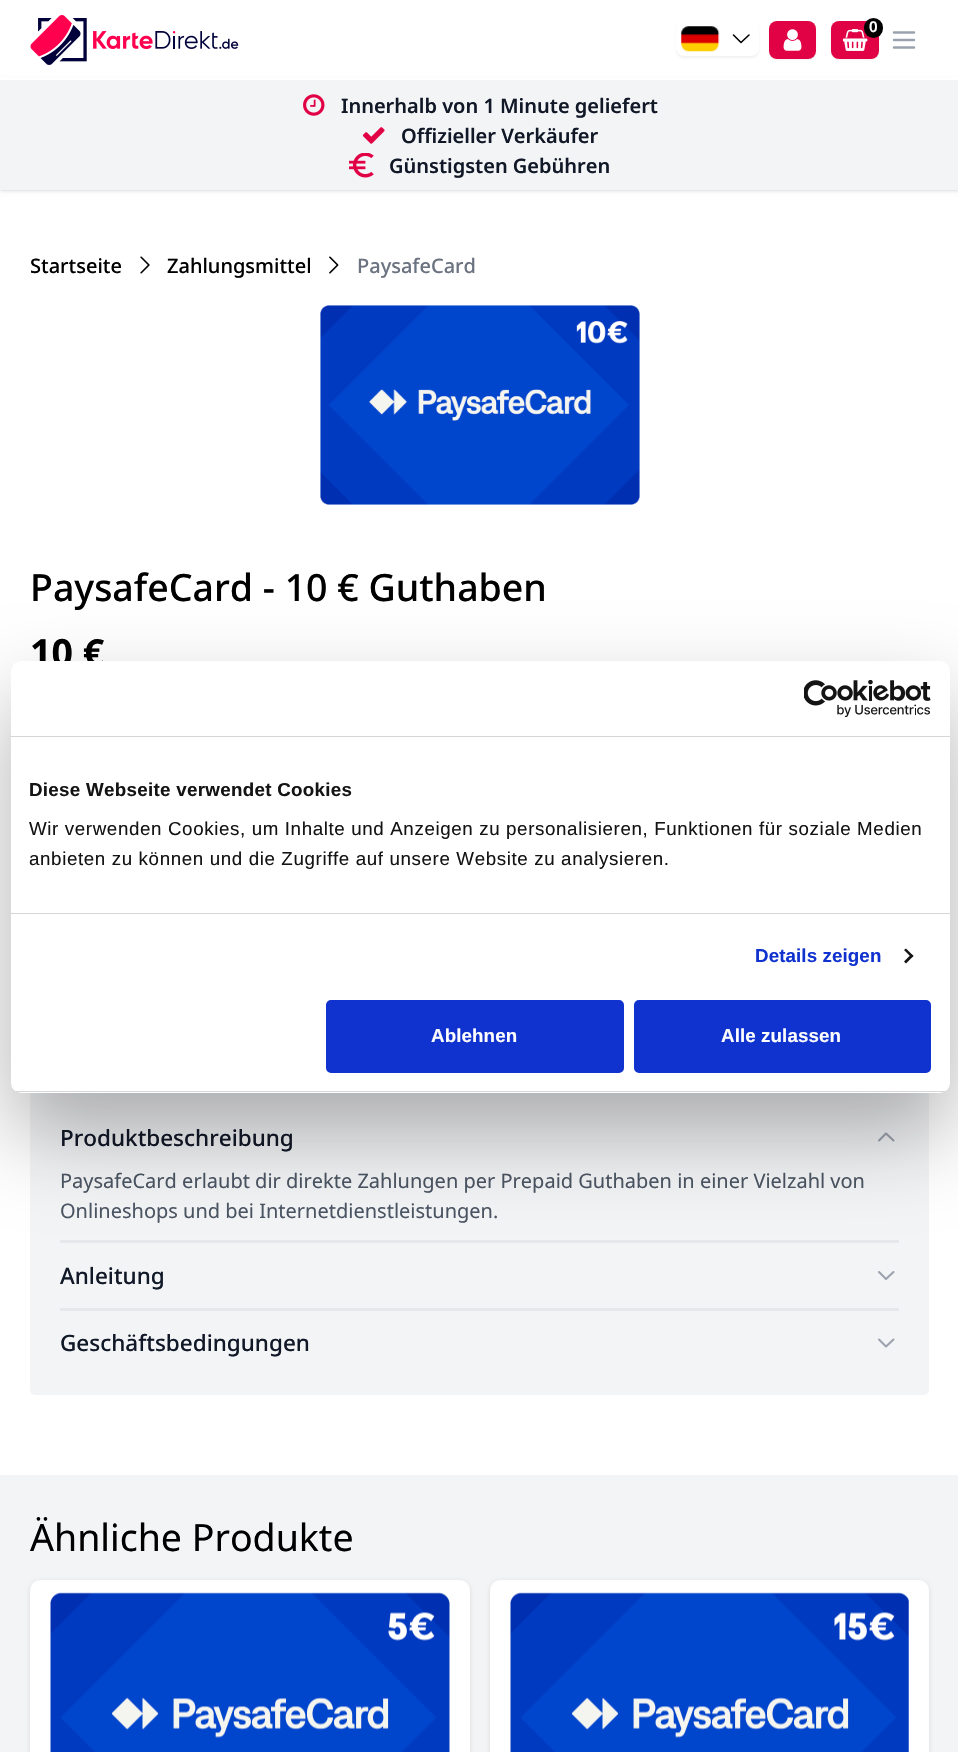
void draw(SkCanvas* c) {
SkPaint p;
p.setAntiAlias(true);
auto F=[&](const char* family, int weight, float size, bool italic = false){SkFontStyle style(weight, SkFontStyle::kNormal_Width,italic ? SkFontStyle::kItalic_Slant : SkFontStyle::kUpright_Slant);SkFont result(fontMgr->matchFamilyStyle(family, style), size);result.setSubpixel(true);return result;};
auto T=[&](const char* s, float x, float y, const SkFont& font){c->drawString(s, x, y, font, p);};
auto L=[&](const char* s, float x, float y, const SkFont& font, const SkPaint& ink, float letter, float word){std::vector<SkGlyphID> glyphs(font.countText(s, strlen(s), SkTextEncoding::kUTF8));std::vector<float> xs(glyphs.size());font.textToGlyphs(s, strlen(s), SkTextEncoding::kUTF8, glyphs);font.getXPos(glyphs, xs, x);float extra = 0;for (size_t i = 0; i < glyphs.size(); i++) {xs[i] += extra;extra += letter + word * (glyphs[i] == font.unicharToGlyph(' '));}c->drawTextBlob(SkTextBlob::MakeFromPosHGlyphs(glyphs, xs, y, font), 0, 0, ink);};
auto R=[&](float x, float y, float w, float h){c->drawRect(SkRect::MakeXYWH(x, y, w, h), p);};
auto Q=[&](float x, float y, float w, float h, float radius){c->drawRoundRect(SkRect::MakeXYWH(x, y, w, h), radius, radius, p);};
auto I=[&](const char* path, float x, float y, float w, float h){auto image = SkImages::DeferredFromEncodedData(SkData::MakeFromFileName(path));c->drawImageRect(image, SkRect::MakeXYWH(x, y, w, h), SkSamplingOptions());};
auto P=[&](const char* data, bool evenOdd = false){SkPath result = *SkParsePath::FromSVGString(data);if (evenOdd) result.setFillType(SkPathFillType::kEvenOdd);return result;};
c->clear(0xffffffff);
p.setColor(0x1a000000);
p.setMaskFilter(SkMaskFilter::MakeBlur(kNormal_SkBlurStyle, 1));
c->drawRect(SkRect::MakeXYWH(1,83,957,107),p);
p.setMaskFilter(nullptr);
p.setMaskFilter(SkMaskFilter::MakeBlur(kNormal_SkBlurStyle, 2));
c->drawRect(SkRect::MakeXYWH(0,81,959,110),p);
p.setMaskFilter(nullptr);
p.setColor(0xffffffff);
R(0,78,958,2);
I("1.png",30,15,209,50);
p.setColor(0x0d000000);
p.setMaskFilter(SkMaskFilter::MakeBlur(kNormal_SkBlurStyle, 1));
c->drawRoundRect(SkRect::MakeXYWH(676,23,83,35),8,8,p);
p.setMaskFilter(nullptr);
p.setColor(0xffffffff);
Q(676,21,83,35,8);
I("2.png",681,26,39,26);
p.setStroke(true);
p.setStrokeWidth(1.6);
p.setStrokeCap(SkPaint::kRound_Cap);
p.setStrokeJoin(SkPaint::kRound_Join);
p.setColor(0xff000000);
c->drawPath(P("M749 35l-8 7.5l-7.5-7.5"),p);
p.setStroke(false);
p.setColor(0x0d000000);
p.setMaskFilter(SkMaskFilter::MakeBlur(kNormal_SkBlurStyle, 1));
c->drawRoundRect(SkRect::MakeXYWH(769,23,47,37),8,8,p);
p.setMaskFilter(nullptr);
p.setColor(0xffe10246);
Q(769,21,47,38,8);
I("3.png",783,29,19,22);
p.setColor(0x0d000000);
p.setMaskFilter(SkMaskFilter::MakeBlur(kNormal_SkBlurStyle, 1));
c->drawRoundRect(SkRect::MakeXYWH(831,23,48,37),8,8,p);
p.setMaskFilter(nullptr);
p.setColor(0xffe10246);
Q(831,21,48,38,8);
I("4.png",843,29,25,22);
p.setColor(0xff000000);
Q(864,18,19,20,9.5);
auto f1 = F("Noto Sans",600,15);
p.setColor(0xffffffff);
T("0",869,32,f1);
p.setStroke(true);
p.setStrokeWidth(2.5);
p.setColor(0xff9ca3af);
c->drawPath(P("M894 32.5h20m-20 7.5h20m-20 7.5h20"),p);
p.setStroke(false);
p.setColor(0xfff3f4f6);
R(0,80,958,110);
I("5.png",303,94,22,22);
auto f2 = F("Noto Sans",600,20);
p.setColor(0xff111827);
T("Innerhalb von 1 Minute geliefert",341,113,f2);
I("6.png",363,127,22,17);
T("Offizieller Verkäufer",401,143,f2);
I("7.png",349,153,25,25);
T("Günstigsten Gebühren",389,173,f2);
auto f3 = F("Noto Sans",500,20);
p.setColor(0xff000000);
T("Startseite",30,273,f3);
I("8.png",140,256,10,18);
T("Zahlungsmittel",167,273,f3);
I("9.png",329,256,10,18);
p.setColor(0xff6b7280);
T("PaysafeCard",357,273,f3);
I("10.png",320,305,320,200);
auto f4 = F("Noto Sans",500,37.5);
p.setColor(0xff000000);
T("PaysafeCard - 10 € Guthaben",30,601,f4);
auto f5 = F("Noto Sans",700,37.5);
T("10 €",30,666,f5);
p.setColor(0xfff3f4f6);
Q(30,1085,899,310,5);
auto f6 = F("Noto Sans",500,22.5);
p.setColor(0xff111827);
T("Produktbeschreibung",60,1146,f6);
p.setStroke(true);
p.setStrokeWidth(2.1);
p.setColor(0xff9ca3af);
c->drawPath(P("M879 1140.5l7-7l7.5 7"),p);
auto f7 = F("Noto Sans",400,20);
p.setStroke(false);
p.setColor(0xff4b5563);
T("PaysafeCard erlaubt dir direkte Zahlungen per Prepaid Guthaben in einer Vielzahl von",60,1188,f7);
T("Onlineshops und bei Internetdienstleistungen.",60,1218,f7);
p.setColor(0xffe5e7eb);
R(60,1240,839,3);
p.setColor(0xff111827);
T("Anleitung",60,1284,f6);
p.setStroke(true);
p.setColor(0xff9ca3af);
c->drawPath(P("M893.5 1272l-7.5 7l-7-7"),p);
p.setStroke(false);
p.setColor(0xffe5e7eb);
R(60,1308,839,3);
p.setColor(0xff111827);
T("Geschäftsbedingungen",60,1351,f6);
p.setStroke(true);
p.setColor(0xff9ca3af);
c->drawPath(P("M893.5 1339.5l-7.5 7l-7-7"),p);
p.setStroke(false);
p.setColor(0xfff3f4f6);
R(0,1475,958,277);
auto f8 = F("Noto Sans",400,37.5);
p.setColor(0xff000000);
T("Ähnliche Produkte",30,1551,f8);
p.setColor(0x1a000000);
p.setMaskFilter(SkMaskFilter::MakeBlur(kNormal_SkBlurStyle, 2));
c->drawRoundRect(SkRect::MakeXYWH(30,1581,440,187),10,10,p);
p.setMaskFilter(nullptr);
p.setColor(0xffffffff);
Q(30,1580,440,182,10);
I("11.png",50,1592,400,160);
p.setColor(0x1a000000);
p.setMaskFilter(SkMaskFilter::MakeBlur(kNormal_SkBlurStyle, 2));
c->drawRoundRect(SkRect::MakeXYWH(490,1581,439,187),10,10,p);
p.setMaskFilter(nullptr);
p.setColor(0xffffffff);
Q(490,1580,439,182,10);
I("12.png",510,1592,399,160);
p.setColor(0x4d000000);
p.setMaskFilter(SkMaskFilter::MakeBlur(kNormal_SkBlurStyle, 42.5));
c->drawRoundRect(SkRect::MakeXYWH(11,701,939,432),10,10,p);
p.setMaskFilter(nullptr);
p.setColor(0xffffffff);
Q(11,661,939,432,10);
p.setColor(0xffd6d6d6);
R(11,736,939,1);
I("13.png",804,680,127,38);
R(11,913,939,1);
auto f9 = F("Liberation Sans",700,18.75);
p.setColor(0xff141414);
L("Diese Webseite verwendet Cookies",29,796,f9,p,.3,0);
auto f10 = F("Liberation Sans",400,18.75);
L("Wir verwenden Cookies, um Inhalte und Anzeigen zu personalisieren, Funktionen für soziale Medien",29,835,f10,p,.62,0);
L("anbieten zu können und die Zugriffe auf unsere Website zu analysieren.",29,865,f10,p,.62,0);
p.setColor(0xff1032cf);
L("Details zeigen",755,962,f9,p,.1,0);
p.setColor(0xff141414);
c->drawPath(P("M906 948.5l7.5 7.5l-2 1.5l-7.5-7.5z"),p);
c->drawPath(P("M911.5 954l2 2l-7.5 7.5l-2-2z"),p);
c->save();
c->clipPath(P("M21 661h919c5.5 0 10 4.5 10 10v412c0 5.5-4.5 10-10 10h-919c-5.5 0-10-4.5-10-10v-412c0-5.5 4.5-10 10-10z"),true);
p.setColor(0xffd6d6d6);
R(11,1091,939,1);
c->restore();
p.setColor(0xff1032cf);
c->drawRoundRect(SkRect::MakeXYWH(327.5,1001.5,295,70),3.5,3.5,p);
p.setStroke(true);
p.setStrokeWidth(3);
p.setStrokeCap(SkPaint::kButt_Cap);
p.setStrokeJoin(SkPaint::kMiter_Join);
c->drawRoundRect(SkRect::MakeXYWH(327.5,1001.5,295,70),3.5,3.5,p);
p.setStroke(false);
p.setColor(0xffffffff);
L("Ablehnen",431,1042,f9,p,.1,0);
p.setColor(0xff1032cf);
c->drawRoundRect(SkRect::MakeXYWH(635.5,1001.5,294,70),3.5,3.5,p);
p.setStroke(true);
c->drawRoundRect(SkRect::MakeXYWH(635.5,1001.5,294,70),3.5,3.5,p);
p.setStroke(false);
p.setColor(0xffffffff);
L("Alle zulassen",721,1042,f9,p,.1,0);
}
